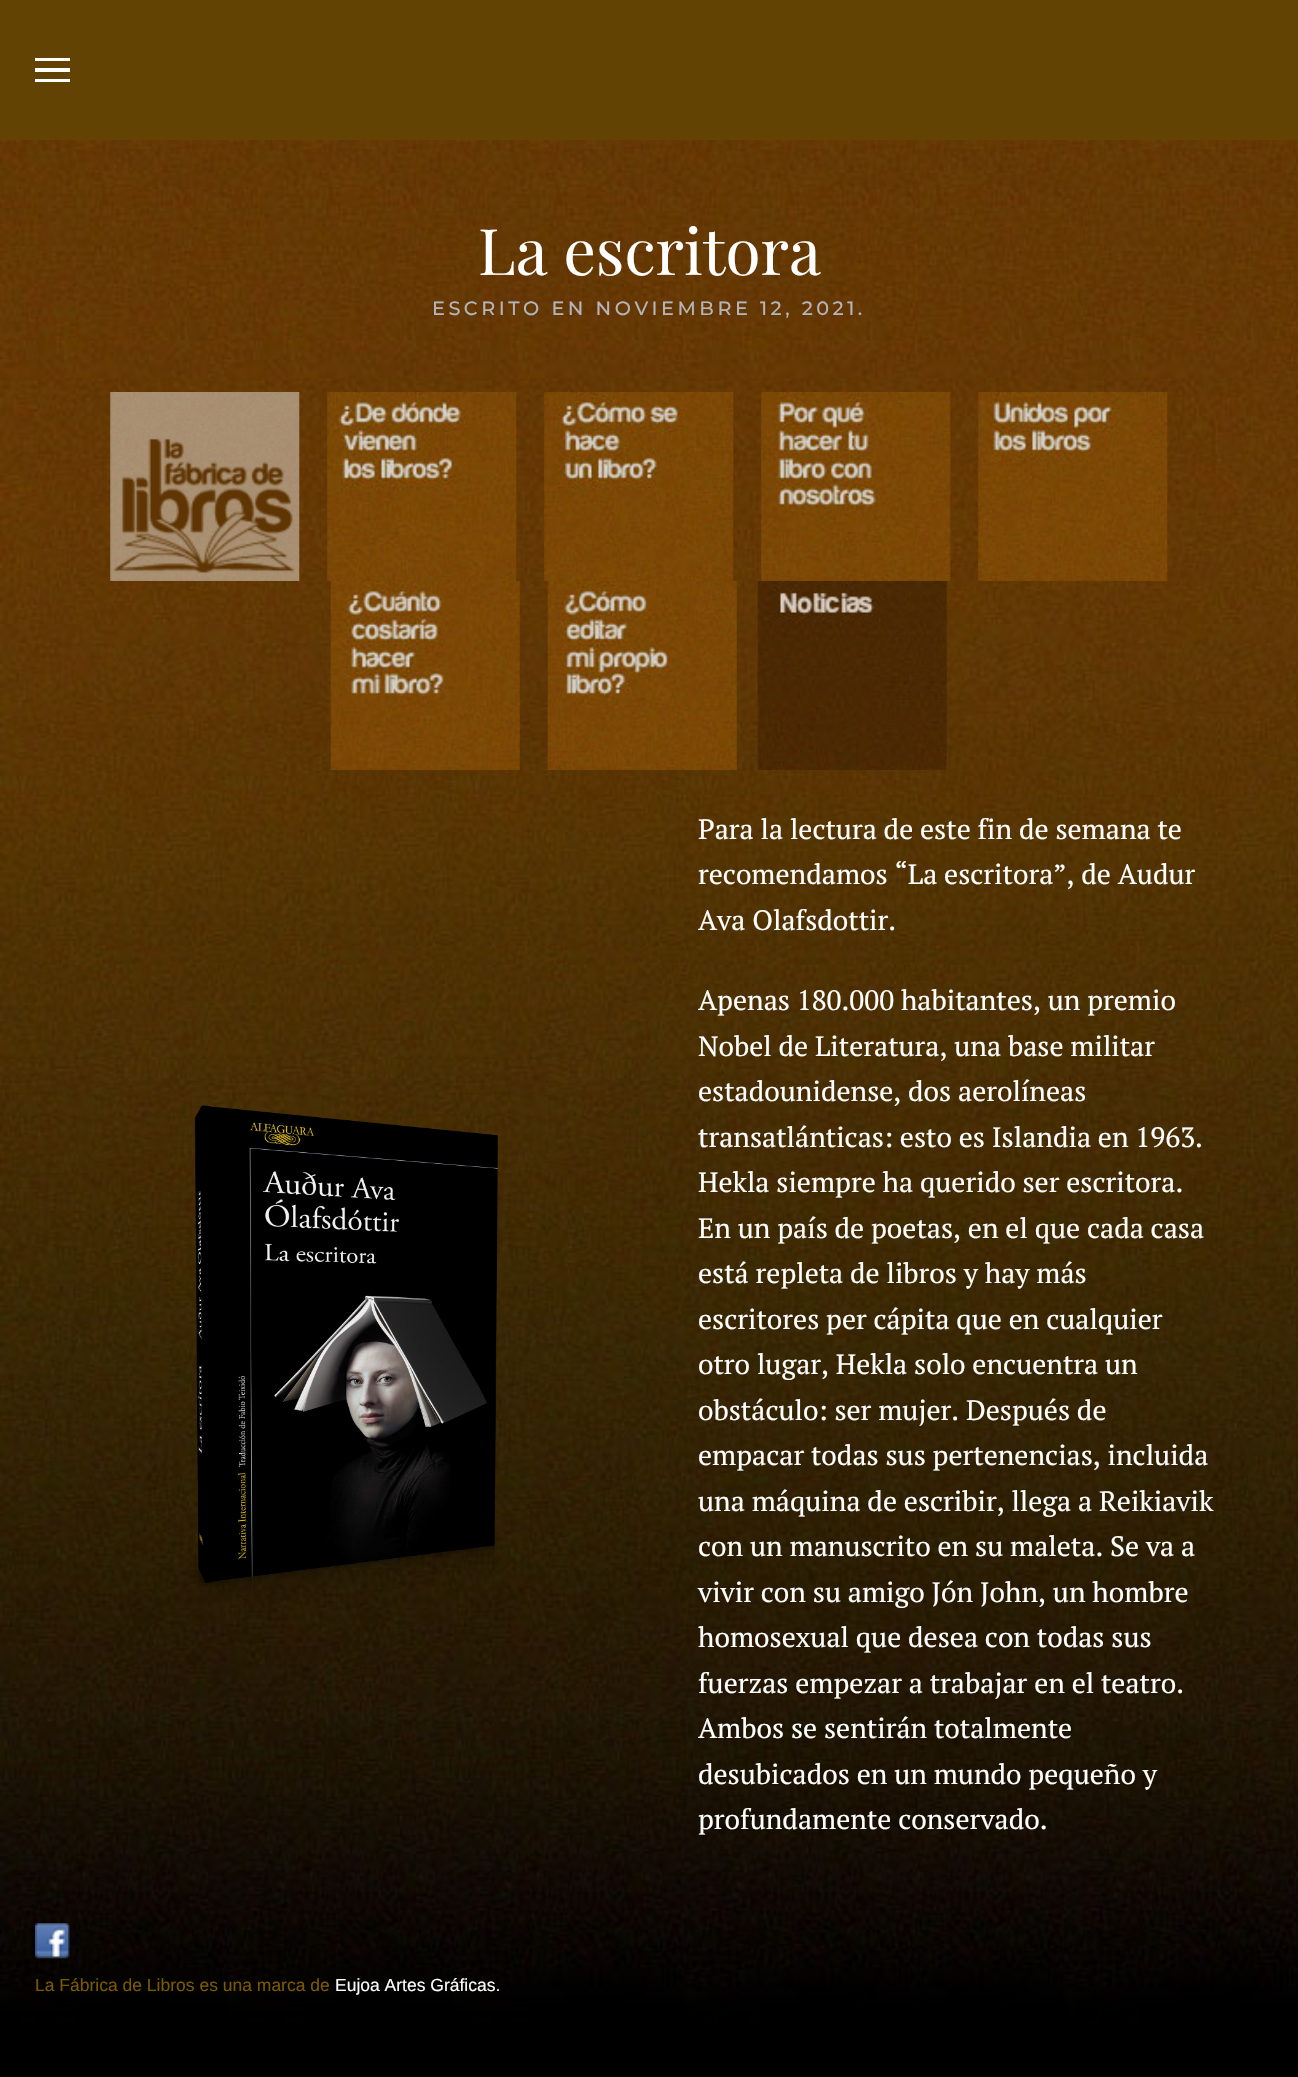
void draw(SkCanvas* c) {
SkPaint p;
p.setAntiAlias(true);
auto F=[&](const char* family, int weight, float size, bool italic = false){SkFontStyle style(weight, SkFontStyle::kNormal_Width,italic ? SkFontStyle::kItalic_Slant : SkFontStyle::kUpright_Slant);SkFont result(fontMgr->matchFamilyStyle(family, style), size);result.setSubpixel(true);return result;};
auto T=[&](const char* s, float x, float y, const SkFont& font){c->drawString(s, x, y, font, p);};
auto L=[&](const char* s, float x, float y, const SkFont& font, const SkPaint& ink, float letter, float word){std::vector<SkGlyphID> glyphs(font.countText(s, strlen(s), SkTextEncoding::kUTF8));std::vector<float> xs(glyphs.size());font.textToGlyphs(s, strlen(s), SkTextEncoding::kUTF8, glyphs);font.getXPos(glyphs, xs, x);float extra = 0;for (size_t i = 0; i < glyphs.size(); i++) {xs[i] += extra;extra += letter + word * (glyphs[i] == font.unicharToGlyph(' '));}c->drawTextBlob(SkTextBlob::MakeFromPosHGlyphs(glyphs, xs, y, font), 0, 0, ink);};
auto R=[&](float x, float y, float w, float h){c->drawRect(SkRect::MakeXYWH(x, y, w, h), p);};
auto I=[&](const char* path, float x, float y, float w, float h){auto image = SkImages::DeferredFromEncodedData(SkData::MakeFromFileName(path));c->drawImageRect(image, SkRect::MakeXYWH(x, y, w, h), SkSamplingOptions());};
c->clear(0xffffffff);
I("1.png",0,140,1298,1937);
p.setColor(0xff624303);
R(0,0,1298,140);
p.setColor(0xffffffff);
R(35,58,35,3);
R(35,68,35,4);
R(35,79,35,3);
auto f1 = F("Playfair Display",400,64);
T("La escritora",478,275,f1);
auto f2 = F("Montserrat",100,19.25);
p.setColor(0xffb4b5ba);
L("ESCRITO EN NOVIEMBRE 12, 2021.",432,315,f2,p,3.5,0);
I("2.png",110,392,190,189);
I("3.png",327,392,190,189);
I("4.png",544,392,190,189);
I("5.png",761,392,190,189);
I("6.png",978,392,190,189);
I("7.png",330,581,190,189);
I("8.png",547,581,190,189);
I("9.png",757,581,190,189);
I("10.png",190,1105,308,498);
auto f3 = F("PT Serif",400,28);
p.setColor(0xffffffff);
T("Para la lectura de este fin de semana te",698,839,f3);
T("recomendamos “La escritora”, de Audur",698,884,f3);
T("Ava Olafsdottir.",698,930,f3);
T("Apenas 180.000 habitantes, un premio",698,1010,f3);
T("Nobel de Literatura, una base militar",698,1056,f3);
T("estadounidense, dos aerolíneas",698,1101,f3);
T("transatlánticas: esto es Islandia en 1963.",698,1147,f3);
T("Hekla siempre ha querido ser escritora.",698,1192,f3);
T("En un país de poetas, en el que cada casa",698,1238,f3);
T("está repleta de libros y hay más",698,1283,f3);
T("escritores per cápita que en cualquier",698,1329,f3);
T("otro lugar, Hekla solo encuentra un",698,1374,f3);
T("obstáculo: ser mujer. Después de",698,1420,f3);
T("empacar todas sus pertenencias, incluida",698,1465,f3);
T("una máquina de escribir, llega a Reikiavik",698,1511,f3);
T("con un manuscrito en su maleta. Se va a",698,1556,f3);
T("vivir con su amigo Jón John, un hombre",698,1602,f3);
T("homosexual que desea con todas sus",698,1647,f3);
T("fuerzas empezar a trabajar en el teatro.",698,1693,f3);
T("Ambos se sentirán totalmente",698,1738,f3);
T("desubicados en un mundo pequeño y",698,1784,f3);
T("profundamente conservado.",698,1829,f3);
I("11.png",35,1923,35,36);
auto f4 = F("Liberation Sans",400,17.5);
p.setColor(0xff7a5901);
T("La Fábrica de Libros es una marca de",35,1991,f4);
p.setColor(0xffffffff);
T("Eujoa Artes Gráficas.",335,1991,f4);
}
